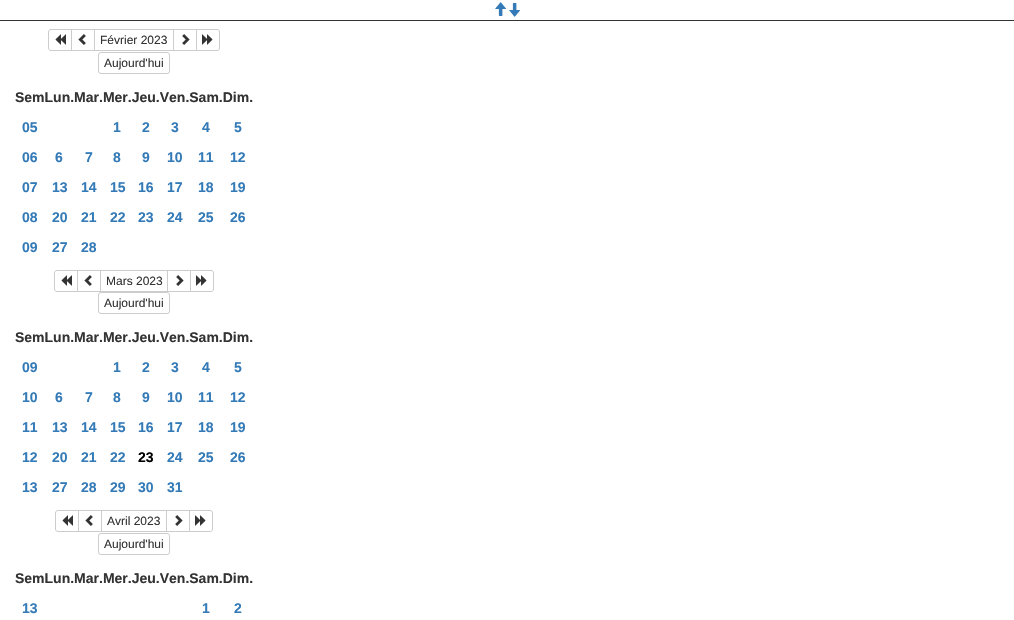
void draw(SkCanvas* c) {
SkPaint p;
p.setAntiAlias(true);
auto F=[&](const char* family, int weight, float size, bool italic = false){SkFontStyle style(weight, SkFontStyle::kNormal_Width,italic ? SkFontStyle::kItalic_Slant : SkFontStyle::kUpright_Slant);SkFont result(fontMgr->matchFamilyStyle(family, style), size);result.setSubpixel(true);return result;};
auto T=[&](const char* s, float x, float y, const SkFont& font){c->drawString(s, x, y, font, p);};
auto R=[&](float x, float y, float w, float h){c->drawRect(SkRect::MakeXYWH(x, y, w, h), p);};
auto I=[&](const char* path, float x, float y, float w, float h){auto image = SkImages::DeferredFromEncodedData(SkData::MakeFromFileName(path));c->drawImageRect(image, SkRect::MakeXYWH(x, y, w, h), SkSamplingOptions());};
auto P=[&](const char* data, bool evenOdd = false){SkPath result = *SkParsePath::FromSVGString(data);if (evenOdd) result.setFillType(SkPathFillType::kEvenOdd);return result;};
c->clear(0xffffffff);
p.setColor(0xff333333);
R(0,20,1014,1);
I("1.png",495,2,11,14);
I("2.png",509,3,11,14);
p.setStroke(true);
p.setStrokeWidth(1);
p.setColor(0xffcccccc);
c->drawPath(P("M51 29.5h20.5v21h-20.5c-1.5 0-2.5-1-2.5-2.5v-16c0-1.5 1-2.5 2.5-2.5z"),p);
I("3.png",55,34,11,11);
c->drawRect(SkRect::MakeXYWH(71.5,29.5,23,21),p);
I("4.png",78,34,8,11);
c->drawRect(SkRect::MakeXYWH(94.5,29.5,79,21),p);
auto f1 = F("Liberation Sans",400,12);
p.setStroke(false);
p.setColor(0xff333333);
T("Février 2023",100,44,f1);
p.setStroke(true);
p.setColor(0xffcccccc);
c->drawRect(SkRect::MakeXYWH(173.5,29.5,23,21),p);
I("5.png",182,34,8,11);
p.setStroke(false);
p.setColor(0xffffffff);
c->drawPath(P("M196.5 29.5h20.5c1.5 0 2.5 1 2.5 2.5v16c0 1.5-1 2.5-2.5 2.5h-20.5z"),p);
p.setStroke(true);
p.setColor(0xffcccccc);
c->drawPath(P("M196.5 29.5h20.5c1.5 0 2.5 1 2.5 2.5v16c0 1.5-1 2.5-2.5 2.5h-20.5z"),p);
I("6.png",202,34,11,11);
c->drawRoundRect(SkRect::MakeXYWH(98.5,52.5,71,21),2.5,2.5,p);
p.setStroke(false);
p.setColor(0xff333333);
T("Aujourd'hui",104,67,f1);
auto f2 = F("Liberation Sans",700,14);
T("SemLun.Mar.Mer.Jeu.Ven.Sam.Dim.",15,102,f2);
p.setColor(0xff337ab7);
T("05",22,132,f2);
T("1",113,132,f2);
T("2",142,132,f2);
T("3",171,132,f2);
T("4",202,132,f2);
T("5",234,132,f2);
T("06",22,162,f2);
T("6",55,162,f2);
T("7",85,162,f2);
T("8",113,162,f2);
T("9",142,162,f2);
T("10",167,162,f2);
T("11",198,162,f2);
T("12",230,162,f2);
T("07",22,192,f2);
T("13",52,192,f2);
T("14",81,192,f2);
T("15",110,192,f2);
T("16",138,192,f2);
T("17",167,192,f2);
T("18",198,192,f2);
T("19",230,192,f2);
T("08",22,222,f2);
T("20",52,222,f2);
T("21",81,222,f2);
T("22",110,222,f2);
T("23",138,222,f2);
T("24",167,222,f2);
T("25",198,222,f2);
T("26",230,222,f2);
T("09",22,252,f2);
T("27",52,252,f2);
T("28",81,252,f2);
p.setStroke(true);
p.setColor(0xffcccccc);
c->drawPath(P("M57 270.5h20.5v21h-20.5c-1.5 0-2.5-1-2.5-2.5v-16c0-1.5 1-2.5 2.5-2.5z"),p);
I("3.png",61,275,11,11);
c->drawRect(SkRect::MakeXYWH(77.5,270.5,23,21),p);
I("4.png",84,275,8,11);
c->drawRect(SkRect::MakeXYWH(100.5,270.5,67,21),p);
p.setStroke(false);
p.setColor(0xff333333);
T("Mars 2023",106,285,f1);
p.setStroke(true);
p.setColor(0xffcccccc);
c->drawRect(SkRect::MakeXYWH(167.5,270.5,23,21),p);
I("5.png",176,275,8,11);
p.setStroke(false);
p.setColor(0xffffffff);
c->drawPath(P("M190.5 270.5h20.5c1.5 0 2.5 1 2.5 2.5v16c0 1.5-1 2.5-2.5 2.5h-20.5z"),p);
p.setStroke(true);
p.setColor(0xffcccccc);
c->drawPath(P("M190.5 270.5h20.5c1.5 0 2.5 1 2.5 2.5v16c0 1.5-1 2.5-2.5 2.5h-20.5z"),p);
I("6.png",196,275,11,11);
c->drawRoundRect(SkRect::MakeXYWH(98.5,292.5,71,21),2.5,2.5,p);
p.setStroke(false);
p.setColor(0xff333333);
T("Aujourd'hui",104,307,f1);
T("SemLun.Mar.Mer.Jeu.Ven.Sam.Dim.",15,342,f2);
p.setColor(0xff337ab7);
T("09",22,372,f2);
T("1",113,372,f2);
T("2",142,372,f2);
T("3",171,372,f2);
T("4",202,372,f2);
T("5",234,372,f2);
T("10",22,402,f2);
T("6",55,402,f2);
T("7",85,402,f2);
T("8",113,402,f2);
T("9",142,402,f2);
T("10",167,402,f2);
T("11",198,402,f2);
T("12",230,402,f2);
T("11",22,432,f2);
T("13",52,432,f2);
T("14",81,432,f2);
T("15",110,432,f2);
T("16",138,432,f2);
T("17",167,432,f2);
T("18",198,432,f2);
T("19",230,432,f2);
T("12",22,462,f2);
T("20",52,462,f2);
T("21",81,462,f2);
T("22",110,462,f2);
p.setColor(0xff000000);
T("23",138,462,f2);
p.setColor(0xff337ab7);
T("24",167,462,f2);
T("25",198,462,f2);
T("26",230,462,f2);
T("13",22,492,f2);
T("27",52,492,f2);
T("28",81,492,f2);
T("29",110,492,f2);
T("30",138,492,f2);
T("31",167,492,f2);
p.setStroke(true);
p.setColor(0xffcccccc);
c->drawPath(P("M58 510.5h20.5v21h-20.5c-1.5 0-2.5-1-2.5-2.5v-16c0-1.5 1-2.5 2.5-2.5z"),p);
I("3.png",62,515,11,11);
c->drawRect(SkRect::MakeXYWH(78.5,510.5,23,21),p);
I("4.png",85,515,8,11);
c->drawRect(SkRect::MakeXYWH(101.5,510.5,65,21),p);
p.setStroke(false);
p.setColor(0xff333333);
T("Avril 2023",107,525,f1);
p.setStroke(true);
p.setColor(0xffcccccc);
c->drawRect(SkRect::MakeXYWH(166.5,510.5,23,21),p);
I("5.png",175,515,8,11);
p.setStroke(false);
p.setColor(0xffffffff);
c->drawPath(P("M189.5 510.5h20.5c1.5 0 2.5 1 2.5 2.5v16c0 1.5-1 2.5-2.5 2.5h-20.5z"),p);
p.setStroke(true);
p.setColor(0xffcccccc);
c->drawPath(P("M189.5 510.5h20.5c1.5 0 2.5 1 2.5 2.5v16c0 1.5-1 2.5-2.5 2.5h-20.5z"),p);
I("6.png",195,515,11,11);
c->drawRoundRect(SkRect::MakeXYWH(98.5,533.5,71,21),2.5,2.5,p);
p.setStroke(false);
p.setColor(0xff333333);
T("Aujourd'hui",104,548,f1);
T("SemLun.Mar.Mer.Jeu.Ven.Sam.Dim.",15,583,f2);
p.setColor(0xff337ab7);
T("13",22,613,f2);
T("1",202,613,f2);
T("2",234,613,f2);
}
